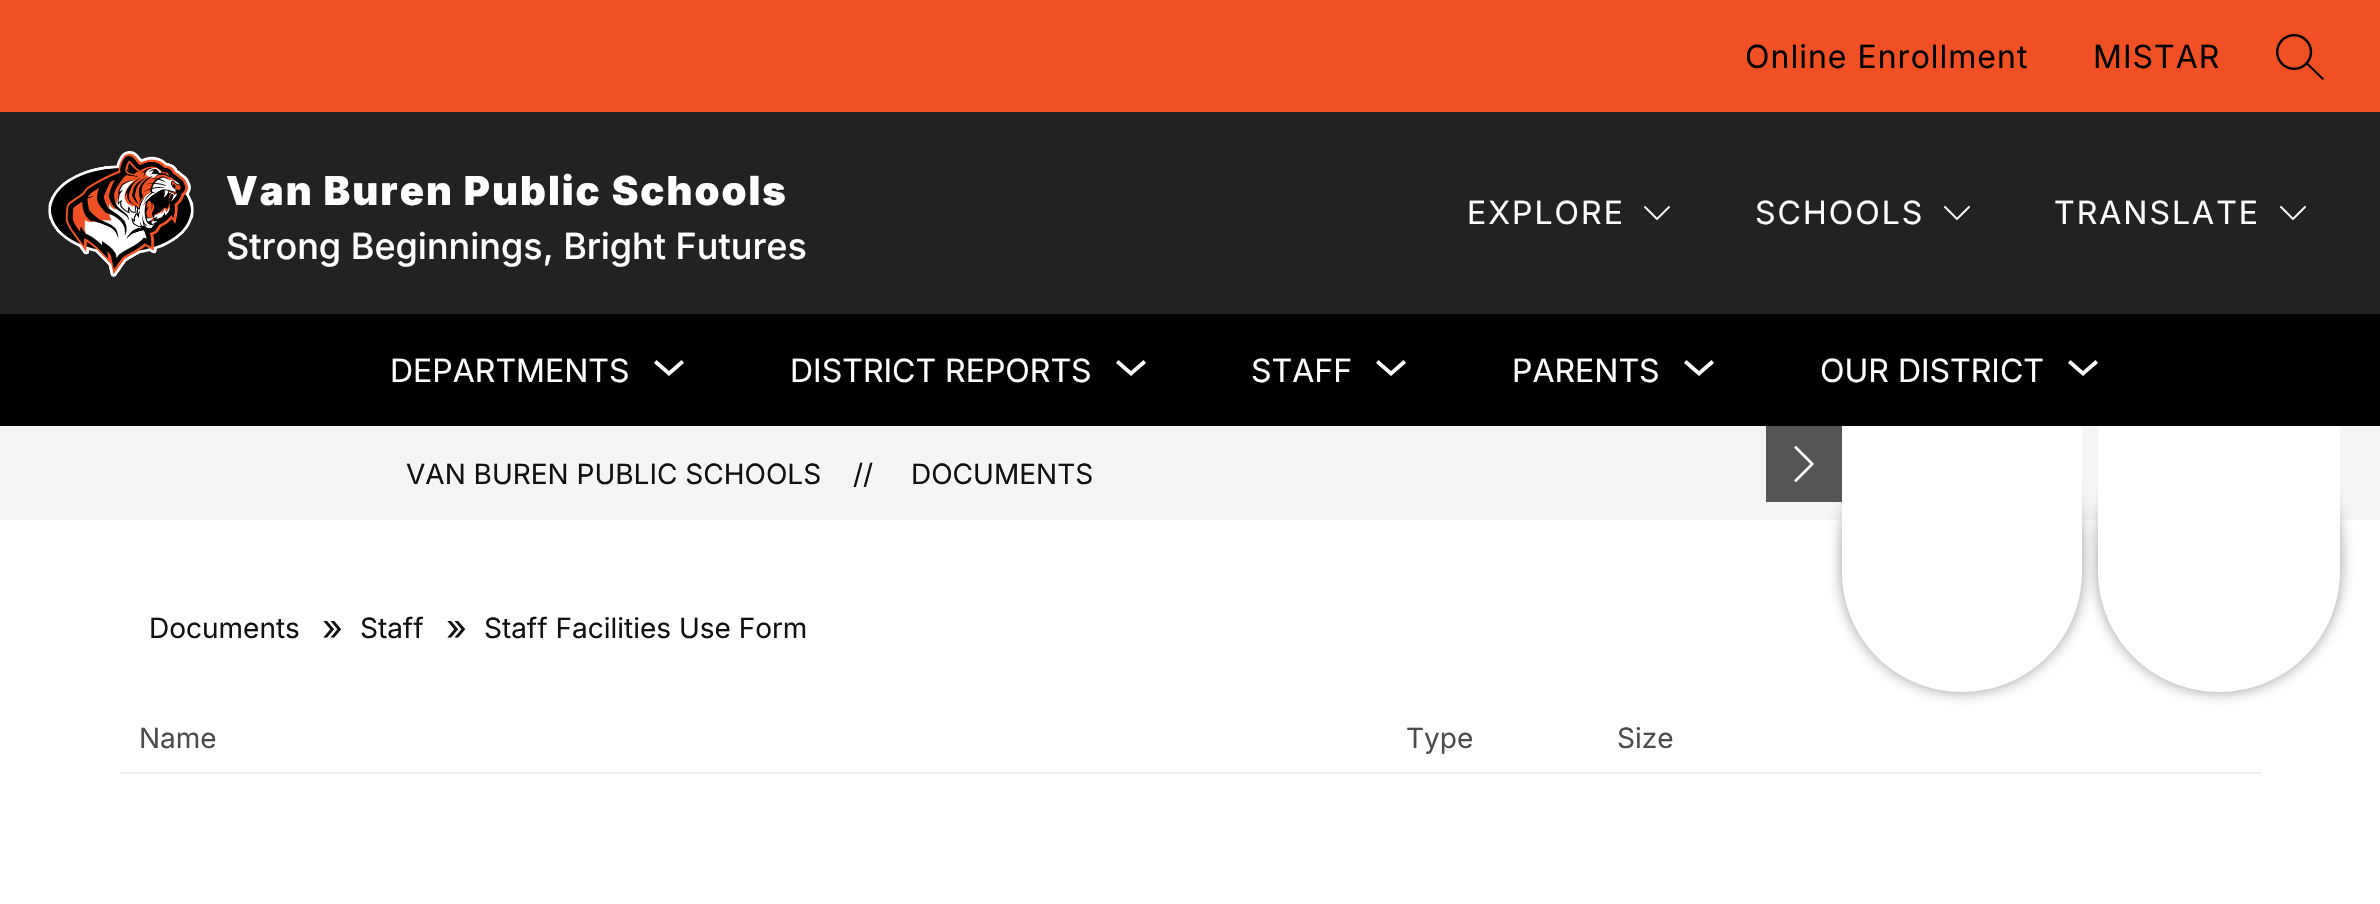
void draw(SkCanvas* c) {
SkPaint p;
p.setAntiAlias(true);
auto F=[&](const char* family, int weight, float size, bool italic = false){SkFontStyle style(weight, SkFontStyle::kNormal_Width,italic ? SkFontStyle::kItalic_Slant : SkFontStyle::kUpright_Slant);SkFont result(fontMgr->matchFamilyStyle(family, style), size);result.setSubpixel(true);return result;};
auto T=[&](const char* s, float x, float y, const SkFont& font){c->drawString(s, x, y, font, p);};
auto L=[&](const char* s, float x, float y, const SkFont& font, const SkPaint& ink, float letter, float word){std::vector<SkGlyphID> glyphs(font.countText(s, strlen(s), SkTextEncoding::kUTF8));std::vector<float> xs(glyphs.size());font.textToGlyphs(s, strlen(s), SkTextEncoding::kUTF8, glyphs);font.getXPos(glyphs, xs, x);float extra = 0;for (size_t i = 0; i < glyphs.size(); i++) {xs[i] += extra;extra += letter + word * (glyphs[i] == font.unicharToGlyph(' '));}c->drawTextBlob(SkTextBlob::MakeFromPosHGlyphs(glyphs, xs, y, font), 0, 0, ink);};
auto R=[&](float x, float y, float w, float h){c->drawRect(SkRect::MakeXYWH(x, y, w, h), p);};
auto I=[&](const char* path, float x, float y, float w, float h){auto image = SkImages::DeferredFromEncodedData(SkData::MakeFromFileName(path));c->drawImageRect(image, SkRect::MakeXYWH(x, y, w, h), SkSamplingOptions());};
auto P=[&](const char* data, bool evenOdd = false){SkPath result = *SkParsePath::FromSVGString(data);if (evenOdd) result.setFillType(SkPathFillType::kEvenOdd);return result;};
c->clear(0xffffffff);
p.setColor(0xff222222);
R(0,112,2380,202);
p.setColor(0xfff05023);
R(0,0,2380,112);
auto f1 = F("Inter",400,32);
p.setColor(0xff000000);
L("Online Enrollment",1745,68,f1,p,1,0);
L("MISTAR",2093,68,f1,p,1,0);
I("1.png",2276,34,48,46);
I("2.png",48,151,146,126);
auto f2 = F("Inter",900,40);
p.setColor(0xffffffff);
L("Van Buren Public Schools",226,205,f2,p,2,0);
auto f3 = F("Inter",500,36);
T("Strong Beginnings, Bright Futures",226,259,f3);
L("EXPLORE",1467,224,f1,p,2,0);
I("3.png",1644,206,26,14);
L("SCHOOLS",1755,224,f1,p,2,0);
I("3.png",1944,206,26,14);
L("TRANSLATE",2054,224,f1,p,2,0);
I("3.png",2280,206,26,14);
p.setColor(0xff000000);
R(0,314,2380,112);
p.setColor(0xffffffff);
T("DEPARTMENTS",390,382,f1);
c->drawPath(P("M681.5 360l-12.5 11l-12.5-11l-2.5 3l15 13l15-13z",true),p);
T("DISTRICT REPORTS",790,382,f1);
c->drawPath(P("M1143.5 360l-12.5 11l-12.5-11l-2.5 3l15 13l15-13z",true),p);
T("STAFF",1251,382,f1);
c->drawPath(P("M1403.5 360l-12.5 11l-12.5-11l-2.5 3l15 13l15-13z",true),p);
T("PARENTS",1512,382,f1);
c->drawPath(P("M1711.5 360l-12.5 11l-12.5-11l-2.5 3l15 13l15-13z",true),p);
T("OUR DISTRICT",1820,382,f1);
c->drawPath(P("M2095.5 360l-12.5 11l-12.5-11l-2.5 3l15 13l15-13z",true),p);
p.setColor(0xfff5f5f5);
R(0,426,2380,94);
p.setColor(0x66000000);
p.setMaskFilter(SkMaskFilter::MakeBlur(kNormal_SkBlurStyle, 7));
c->drawRoundRect(SkRect::MakeXYWH(1842,426,240,266),120,120,p);
p.setMaskFilter(nullptr);
p.setColor(0xff555555);
R(1766,426,76,76);
I("4.png",1794,446,20,36);
p.setColor(0xffffffff);
c->drawPath(P("M1842 426h240v146c0 66.5-53.5 120-120 120c-66.5 0-120-53.5-120-120z"),p);
p.setColor(0x66000000);
p.setMaskFilter(SkMaskFilter::MakeBlur(kNormal_SkBlurStyle, 7));
c->drawRoundRect(SkRect::MakeXYWH(2098,426,242,266),121,121,p);
p.setMaskFilter(nullptr);
p.setColor(0xffffffff);
c->drawPath(P("M2098 426h242v145c0 67-54 121-121 121c-67 0-121-54-121-121z"),p);
auto f4 = F("Inter",400,28);
p.setColor(0xff111111);
T("VAN BUREN PUBLIC SCHOOLS",406,484,f4);
T("//",853,484,f4);
T("DOCUMENTS",911,484,f4);
T("Documents",149,638,f4);
auto f5 = F("Inter",400,36);
T("»",322,640,f5);
T("Staff",360,638,f4);
T("»",446,640,f5);
T("Staff Facilities Use Form",484,638,f4);
p.setColor(0xfff0f0f0);
R(120,772,2142,2);
p.setColor(0xff4c4c4c);
T("Name",139,748,f4);
T("Type",1406,748,f4);
T("Size",1617,748,f4);
}
